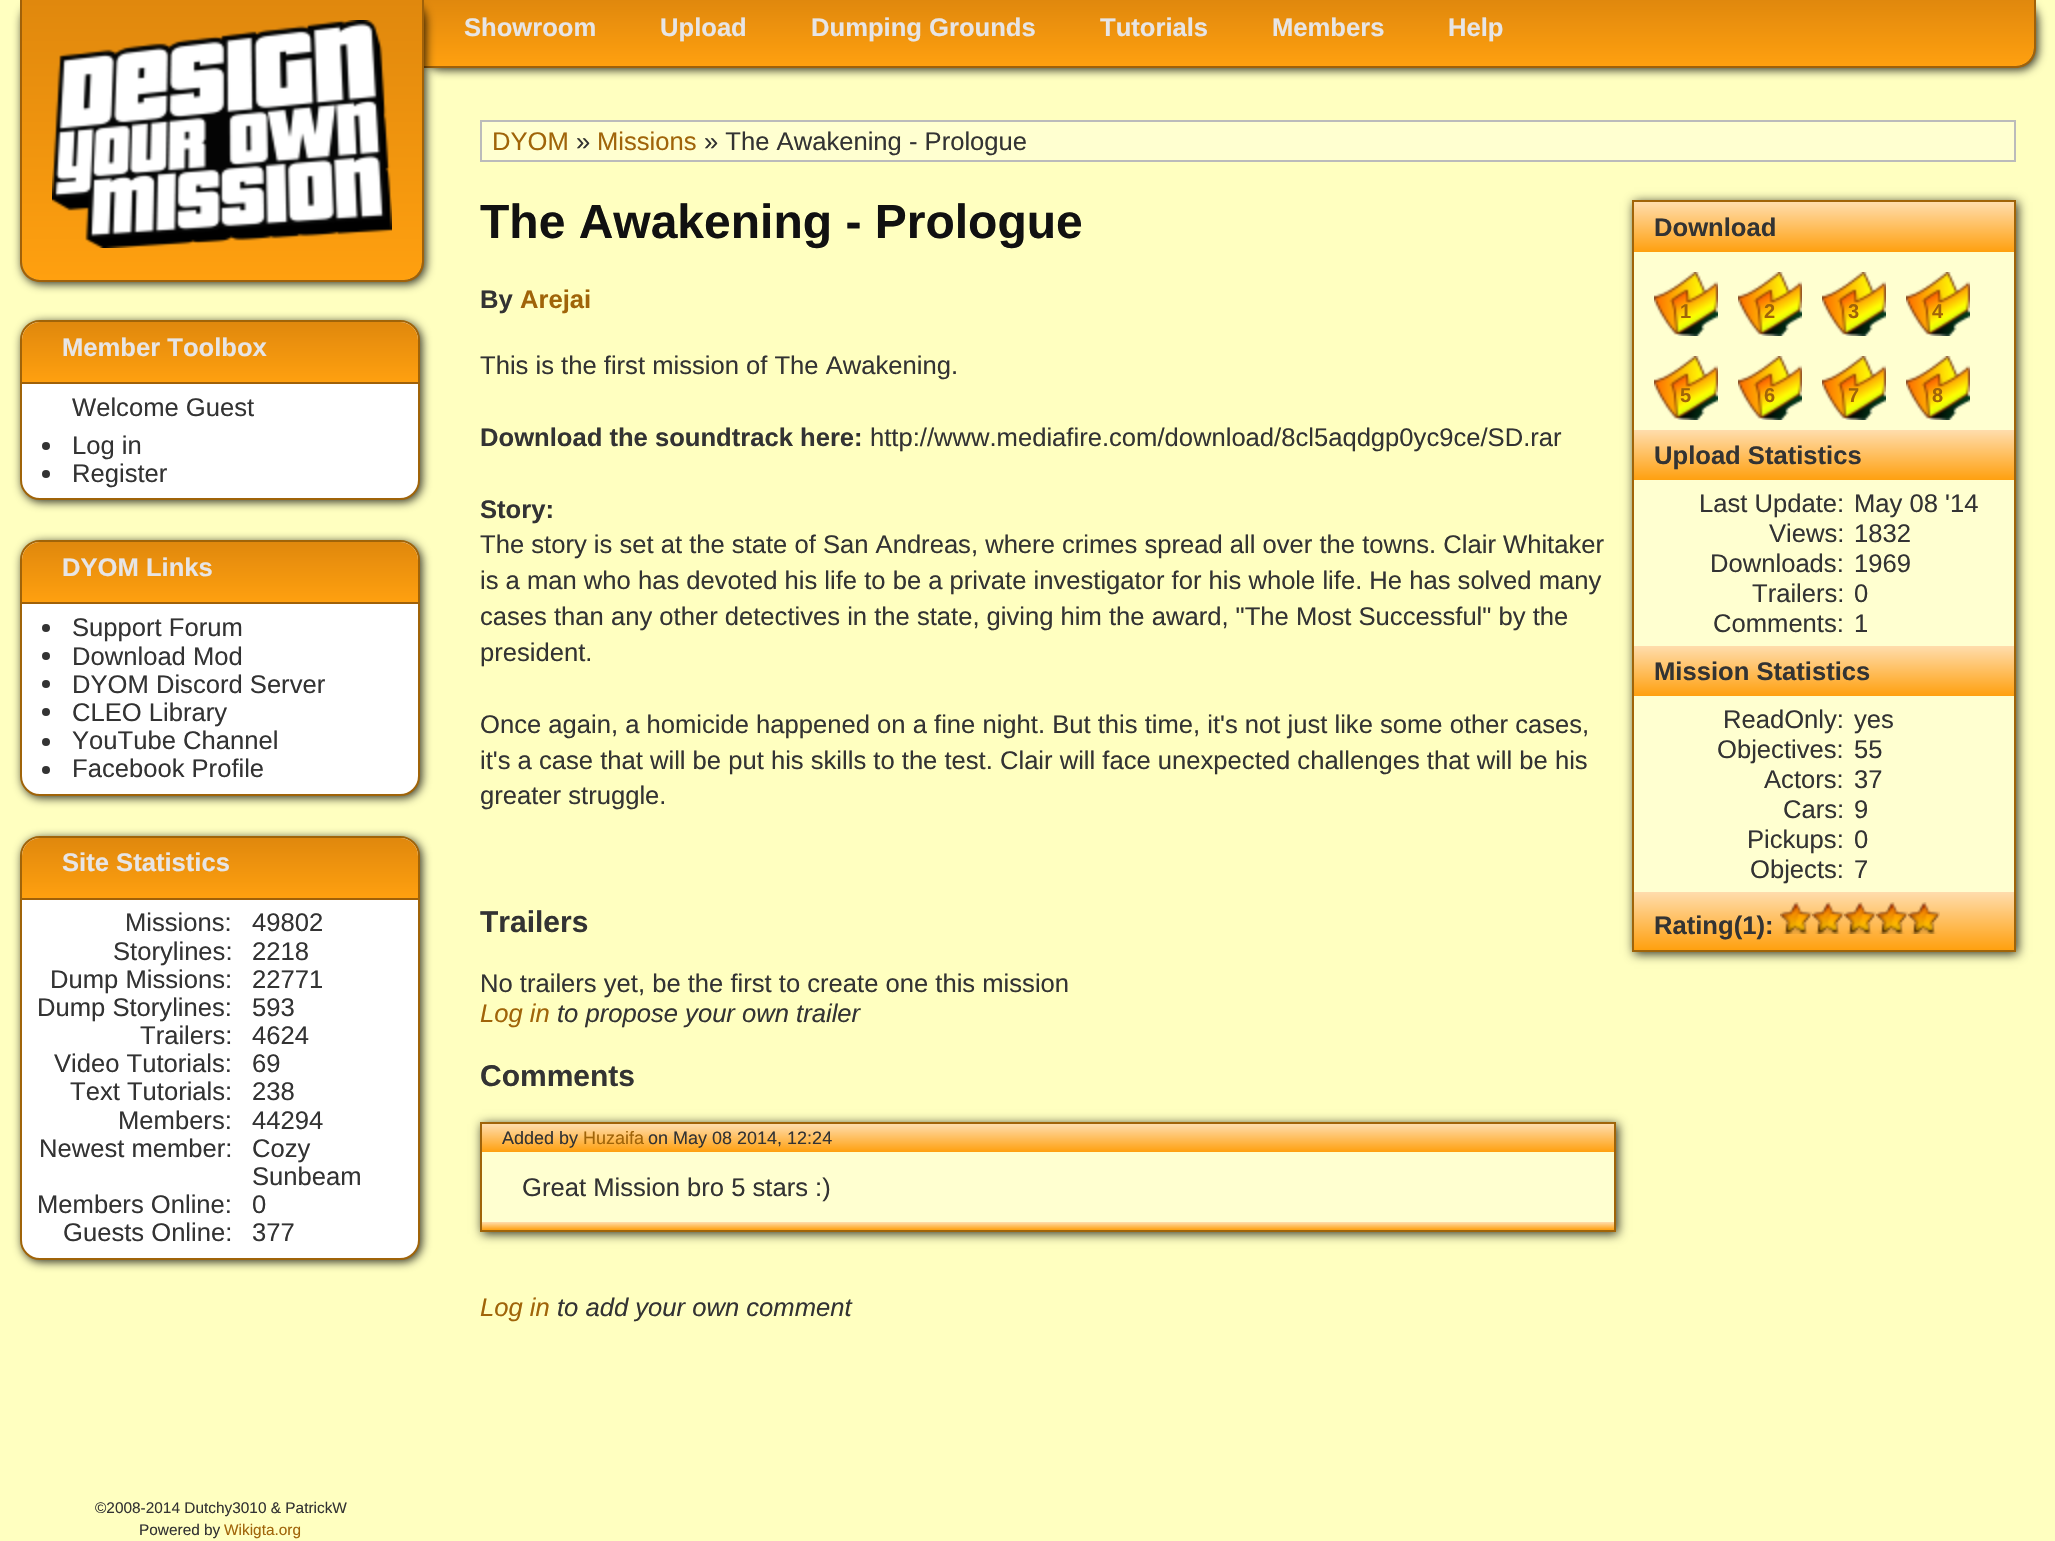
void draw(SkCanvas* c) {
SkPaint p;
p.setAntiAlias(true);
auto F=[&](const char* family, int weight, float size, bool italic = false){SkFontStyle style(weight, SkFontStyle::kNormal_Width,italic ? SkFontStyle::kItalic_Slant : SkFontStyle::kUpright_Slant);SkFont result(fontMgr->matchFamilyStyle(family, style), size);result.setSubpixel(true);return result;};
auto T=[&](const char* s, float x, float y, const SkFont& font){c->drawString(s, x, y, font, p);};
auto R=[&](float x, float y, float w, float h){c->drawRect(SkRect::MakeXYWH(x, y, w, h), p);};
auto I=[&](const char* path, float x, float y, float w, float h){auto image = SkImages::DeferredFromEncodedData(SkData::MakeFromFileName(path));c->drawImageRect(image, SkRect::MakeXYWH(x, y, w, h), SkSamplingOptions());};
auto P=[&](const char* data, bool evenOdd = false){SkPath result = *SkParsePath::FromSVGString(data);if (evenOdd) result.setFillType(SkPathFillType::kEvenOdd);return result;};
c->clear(0xffffffc0);
p.setColor(0xcc000000);
p.setMaskFilter(SkMaskFilter::MakeBlur(kNormal_SkBlurStyle, 5));
c->drawRoundRect(SkRect::MakeXYWH(422,2,1616,68),20,20,p);
p.setMaskFilter(nullptr);
{
const SkColor colors[] = {0xffe0880d,0xffffa00f};
const float stops[] = {0,1};
const SkPoint ends[] = {{420,0}, {420,66}};
p.setShader(SkGradientShader::MakeLinear(ends, colors, stops, 2, SkTileMode::kClamp));
p.setAlpha(255);
}
c->drawPath(P("M420 0h1614v48c0 10-8 18-18 18h-1596z"),p);
p.setShader(nullptr);
p.setColor(0xffa06109);
c->drawPath(P("M420 0h1616v48c0 11-9 20-20 20h-1596zm0 0h1614v48c0 10-8 18-18 18h-1596z",true),p);
p.setColor(0xcc000000);
p.setMaskFilter(SkMaskFilter::MakeBlur(kNormal_SkBlurStyle, 5));
c->drawRoundRect(SkRect::MakeXYWH(22,2,404,282),20,20,p);
p.setMaskFilter(nullptr);
{
const SkColor colors[] = {0xffe0880d,0xffffa00f};
const float stops[] = {0,1};
const SkPoint ends[] = {{22,0}, {22,280}};
p.setShader(SkGradientShader::MakeLinear(ends, colors, stops, 2, SkTileMode::kClamp));
p.setAlpha(255);
}
c->drawPath(P("M22 0h400v262c0 10-8 18-18 18h-364c-10 0-18-8-18-18z"),p);
p.setShader(nullptr);
p.setColor(0xffa06109);
c->drawPath(P("M20 0h404v262c0 11-9 20-20 20h-364c-11 0-20-9-20-20zm2 0h400v262c0 10-8 18-18 18h-364c-10 0-18-8-18-18z",true),p);
I("1.png",52,20,340,228);
auto f1 = F("Liberation Sans",700,25.6);
p.setColor(0xffe7e5e5);
T("Showroom",464,36,f1);
T("Upload",660,36,f1);
T("Dumping Grounds",811,36,f1);
T("Tutorials",1100,36,f1);
T("Members",1272,36,f1);
T("Help",1448,36,f1);
p.setColor(0xcc000000);
p.setMaskFilter(SkMaskFilter::MakeBlur(kNormal_SkBlurStyle, 5));
c->drawRoundRect(SkRect::MakeXYWH(22,322,400,180),20,20,p);
p.setMaskFilter(nullptr);
p.setColor(0xffffffff);
c->drawRoundRect(SkRect::MakeXYWH(21,321,398,178),19,19,p);
p.setStroke(true);
p.setStrokeWidth(2);
p.setColor(0xffa06409);
c->drawRoundRect(SkRect::MakeXYWH(21,321,398,178),19,19,p);
p.setStroke(false);
{
const SkColor colors[] = {0xffe0880d,0xffffa00f};
const float stops[] = {0,1};
const SkPoint ends[] = {{22,322}, {22,382}};
p.setShader(SkGradientShader::MakeLinear(ends, colors, stops, 2, SkTileMode::kClamp));
p.setAlpha(255);
}
c->drawPath(P("M40 322h360c10 0 18 8 18 18v42h-396v-42c0-10 8-18 18-18z"),p);
p.setShader(nullptr);
p.setColor(0xffa06109);
R(22,382,396,2);
p.setColor(0xffe7e5e5);
T("Member Toolbox",62,356,f1);
auto f2 = F("Liberation Sans",400,25.6);
p.setColor(0xff333333);
T("Welcome Guest",72,416,f2);
c->drawCircle(46,446,4,p);
T("Log in",72,454,f2);
c->drawCircle(46,474,4,p);
T("Register",72,482,f2);
p.setColor(0xcc000000);
p.setMaskFilter(SkMaskFilter::MakeBlur(kNormal_SkBlurStyle, 5));
c->drawRoundRect(SkRect::MakeXYWH(22,542,400,256),20,20,p);
p.setMaskFilter(nullptr);
p.setColor(0xffffffff);
c->drawRoundRect(SkRect::MakeXYWH(21,541,398,254),19,19,p);
p.setStroke(true);
p.setColor(0xffa06409);
c->drawRoundRect(SkRect::MakeXYWH(21,541,398,254),19,19,p);
p.setStroke(false);
{
const SkColor colors[] = {0xffe0880d,0xffffa00f};
const float stops[] = {0,1};
const SkPoint ends[] = {{22,542}, {22,602}};
p.setShader(SkGradientShader::MakeLinear(ends, colors, stops, 2, SkTileMode::kClamp));
p.setAlpha(255);
}
c->drawPath(P("M40 542h360c10 0 18 8 18 18v42h-396v-42c0-10 8-18 18-18z"),p);
p.setShader(nullptr);
p.setColor(0xffa06109);
R(22,602,396,2);
p.setColor(0xffe7e5e5);
T("DYOM Links",62,576,f1);
p.setColor(0xff333333);
c->drawCircle(46,628,4,p);
T("Support Forum",72,636,f2);
c->drawCircle(46,656,4,p);
T("Download Mod",72,665,f2);
c->drawCircle(46,684,4,p);
T("DYOM Discord Server",72,693,f2);
c->drawCircle(46,712,4,p);
T("CLEO Library",72,721,f2);
c->drawCircle(46,742,4,p);
T("YouTube Channel",72,749,f2);
c->drawCircle(46,770,4,p);
T("Facebook Profile",72,777,f2);
p.setColor(0xcc000000);
p.setMaskFilter(SkMaskFilter::MakeBlur(kNormal_SkBlurStyle, 5));
c->drawRoundRect(SkRect::MakeXYWH(22,838,400,424),20,20,p);
p.setMaskFilter(nullptr);
p.setColor(0xffffffff);
c->drawRoundRect(SkRect::MakeXYWH(21,837,398,422),19,19,p);
p.setStroke(true);
p.setColor(0xffa06409);
c->drawRoundRect(SkRect::MakeXYWH(21,837,398,422),19,19,p);
p.setStroke(false);
{
const SkColor colors[] = {0xffe0880d,0xffffa00f};
const float stops[] = {0,1};
const SkPoint ends[] = {{22,838}, {22,898}};
p.setShader(SkGradientShader::MakeLinear(ends, colors, stops, 2, SkTileMode::kClamp));
p.setAlpha(255);
}
c->drawPath(P("M40 838h360c10 0 18 8 18 18v42h-396v-42c0-10 8-18 18-18z"),p);
p.setShader(nullptr);
p.setColor(0xffa06109);
R(22,898,396,2);
p.setColor(0xffe7e5e5);
T("Site Statistics",62,871,f1);
p.setColor(0xff333333);
T("Missions:",125,931,f2);
T("49802",252,931,f2);
T("Storylines:",113,960,f2);
T("2218",252,960,f2);
T("Dump Missions:",50,988,f2);
T("22771",252,988,f2);
T("Dump Storylines:",37,1016,f2);
T("593",252,1016,f2);
T("Trailers:",140,1044,f2);
T("4624",252,1044,f2);
T("Video Tutorials:",54,1072,f2);
T("69",252,1072,f2);
T("Text Tutorials:",70,1100,f2);
T("238",252,1100,f2);
T("Members:",118,1129,f2);
T("44294",252,1129,f2);
T("Newest member:",39,1157,f2);
T("Cozy",252,1157,f2);
T("Sunbeam",252,1185,f2);
T("Members Online:",37,1213,f2);
T("0",252,1213,f2);
T("Guests Online:",63,1241,f2);
T("377",252,1241,f2);
auto f3 = F("Liberation Sans",400,15.4);
T("©2008-2014 Dutchy3010 & PatrickW",95,1513,f3);
T("Powered by",139,1535,f3);
p.setColor(0xffa06409);
T("Wikigta.org",224,1535,f3);
p.setColor(0xffffffd0);
c->drawRect(SkRect::MakeXYWH(481,121,1534,40),p);
p.setStroke(true);
p.setColor(0xffbbbbbb);
c->drawRect(SkRect::MakeXYWH(481,121,1534,40),p);
p.setStroke(false);
p.setColor(0xffa06409);
T("DYOM",492,150,f2);
p.setColor(0xff333333);
T("»",576,150,f2);
p.setColor(0xffa06409);
T("Missions",597,150,f2);
p.setColor(0xff333333);
T("» The Awakening - Prologue",704,150,f2);
auto f4 = F("Liberation Sans",700,48);
p.setColor(0xff111111);
T("The Awakening - Prologue",480,238,f4);
p.setColor(0xcc000000);
p.setMaskFilter(SkMaskFilter::MakeBlur(kNormal_SkBlurStyle, 5));
c->drawRect(SkRect::MakeXYWH(1634,202,384,752),p);
p.setMaskFilter(nullptr);
p.setColor(0xffffffd0);
R(1634,252,380,640);
p.setStroke(true);
p.setColor(0xffa06409);
c->drawRect(SkRect::MakeXYWH(1633,201,382,750),p);
p.setStroke(false);
{
const SkColor colors[] = {0xffffddad,0xffffa00f};
const float stops[] = {0,1};
const SkPoint ends[] = {{1634,202}, {1634,252}};
p.setShader(SkGradientShader::MakeLinear(ends, colors, stops, 2, SkTileMode::kClamp));
p.setAlpha(255);
}
R(1634,202,380,50);
p.setShader(nullptr);
p.setColor(0xff333333);
T("Download",1654,236,f1);
I("2.png",1654,272,64,64);
auto f5 = F("Liberation Sans",700,20);
p.setColor(0xffa06409);
T("1",1680,318,f5);
I("2.png",1738,272,64,64);
T("2",1764,318,f5);
I("2.png",1822,272,64,64);
T("3",1848,318,f5);
I("2.png",1906,272,64,64);
T("4",1932,318,f5);
I("2.png",1654,356,64,64);
T("5",1680,402,f5);
I("2.png",1738,356,64,64);
T("6",1764,402,f5);
I("2.png",1822,356,64,64);
T("7",1848,402,f5);
I("2.png",1906,356,64,64);
T("8",1932,402,f5);
{
const SkColor colors[] = {0xffffddad,0xffffa00f};
const float stops[] = {0,1};
const SkPoint ends[] = {{1634,430}, {1634,480}};
p.setShader(SkGradientShader::MakeLinear(ends, colors, stops, 2, SkTileMode::kClamp));
p.setAlpha(255);
}
R(1634,430,380,50);
p.setShader(nullptr);
p.setColor(0xff333333);
T("Upload Statistics",1654,464,f1);
T("Last Update:",1699,512,f2);
T("May 08 '14",1854,512,f2);
T("Views:",1769,542,f2);
T("1832",1854,542,f2);
T("Downloads:",1710,572,f2);
T("1969",1854,572,f2);
T("Trailers:",1752,602,f2);
T("0",1854,602,f2);
T("Comments:",1713,632,f2);
T("1",1854,632,f2);
{
const SkColor colors[] = {0xffffddad,0xffffa00f};
const float stops[] = {0,1};
const SkPoint ends[] = {{1634,646}, {1634,696}};
p.setShader(SkGradientShader::MakeLinear(ends, colors, stops, 2, SkTileMode::kClamp));
p.setAlpha(255);
}
R(1634,646,380,50);
p.setShader(nullptr);
p.setColor(0xff333333);
T("Mission Statistics",1654,680,f1);
T("ReadOnly:",1723,728,f2);
T("yes",1854,728,f2);
T("Objectives:",1717,758,f2);
T("55",1854,758,f2);
T("Actors:",1764,788,f2);
T("37",1854,788,f2);
T("Cars:",1783,818,f2);
T("9",1854,818,f2);
T("Pickups:",1747,848,f2);
T("0",1854,848,f2);
T("Objects:",1750,878,f2);
T("7",1854,878,f2);
{
const SkColor colors[] = {0xffffddad,0xffffa00f};
const float stops[] = {0,1};
const SkPoint ends[] = {{1634,892}, {1634,950}};
p.setShader(SkGradientShader::MakeLinear(ends, colors, stops, 2, SkTileMode::kClamp));
p.setAlpha(255);
}
R(1634,892,380,58);
p.setShader(nullptr);
p.setColor(0xff333333);
T("Rating(1):",1654,934,f1);
I("3.png",1780,902,32,32);
I("3.png",1812,902,32,32);
I("3.png",1844,902,32,32);
I("3.png",1876,902,32,32);
I("3.png",1908,902,32,32);
T("By",480,308,f1);
p.setColor(0xffa06409);
T("Arejai",520,308,f1);
p.setColor(0xff333333);
T("This is the first mission of The Awakening.",480,374,f2);
T("Download the soundtrack here:",480,446,f1);
T("http://www.mediafire.com/download/8cl5aqdgp0yc9ce/SD.rar",870,446,f2);
T("Story:",480,518,f1);
T("The story is set at the state of San Andreas, where crimes spread all over the towns. Clair Whitaker",480,553,f2);
T("is a man who has devoted his life to be a private investigator for his whole life. He has solved many",480,589,f2);
T("cases than any other detectives in the state, giving him the award, \"The Most Successful\" by the",480,625,f2);
T("president.",480,661,f2);
T("Once again, a homicide happened on a fine night. But this time, it's not just like some other cases,",480,733,f2);
T("it's a case that will be put his skills to the test. Clair will face unexpected challenges that will be his",480,769,f2);
T("greater struggle.",480,804,f2);
auto f6 = F("Liberation Sans",700,30);
T("Trailers",480,932,f6);
T("No trailers yet, be the first to create one this mission",480,992,f2);
auto f7 = F("Liberation Sans",400,25.6,true);
p.setColor(0xffa06409);
T("Log in",480,1022,f7);
p.setColor(0xff333333);
T("to propose your own trailer",557,1022,f7);
T("Comments",480,1086,f6);
p.setColor(0xcc000000);
p.setMaskFilter(SkMaskFilter::MakeBlur(kNormal_SkBlurStyle, 5));
c->drawRect(SkRect::MakeXYWH(482,1124,1136,110),p);
p.setMaskFilter(nullptr);
p.setColor(0xffffffd0);
R(482,1152,1132,70);
p.setStroke(true);
p.setColor(0xffa06409);
c->drawRect(SkRect::MakeXYWH(481,1123,1134,108),p);
p.setStroke(false);
{
const SkColor colors[] = {0xffffddad,0xffffa00f};
const float stops[] = {0,1};
const SkPoint ends[] = {{482,1124}, {482,1152}};
p.setShader(SkGradientShader::MakeLinear(ends, colors, stops, 2, SkTileMode::kClamp));
p.setAlpha(255);
}
R(482,1124,1132,28);
auto f8 = F("Liberation Sans",400,18);
p.setShader(nullptr);
p.setColor(0xff333333);
T("Added by",502,1144,f8);
p.setColor(0xffa06409);
T("Huzaifa",583,1144,f8);
p.setColor(0xff333333);
T("on May 08 2014, 12:24",648,1144,f8);
T("Great Mission bro 5 stars :)",522,1196,f2);
{
const SkColor colors[] = {0xffffddad,0xffffa00f};
const float stops[] = {0,1};
const SkPoint ends[] = {{482,1222}, {482,1230}};
p.setShader(SkGradientShader::MakeLinear(ends, colors, stops, 2, SkTileMode::kClamp));
p.setAlpha(255);
}
R(482,1222,1132,8);
p.setShader(nullptr);
p.setColor(0xffa06409);
T("Log in",480,1316,f7);
p.setColor(0xff333333);
T("to add your own comment",557,1316,f7);
}
